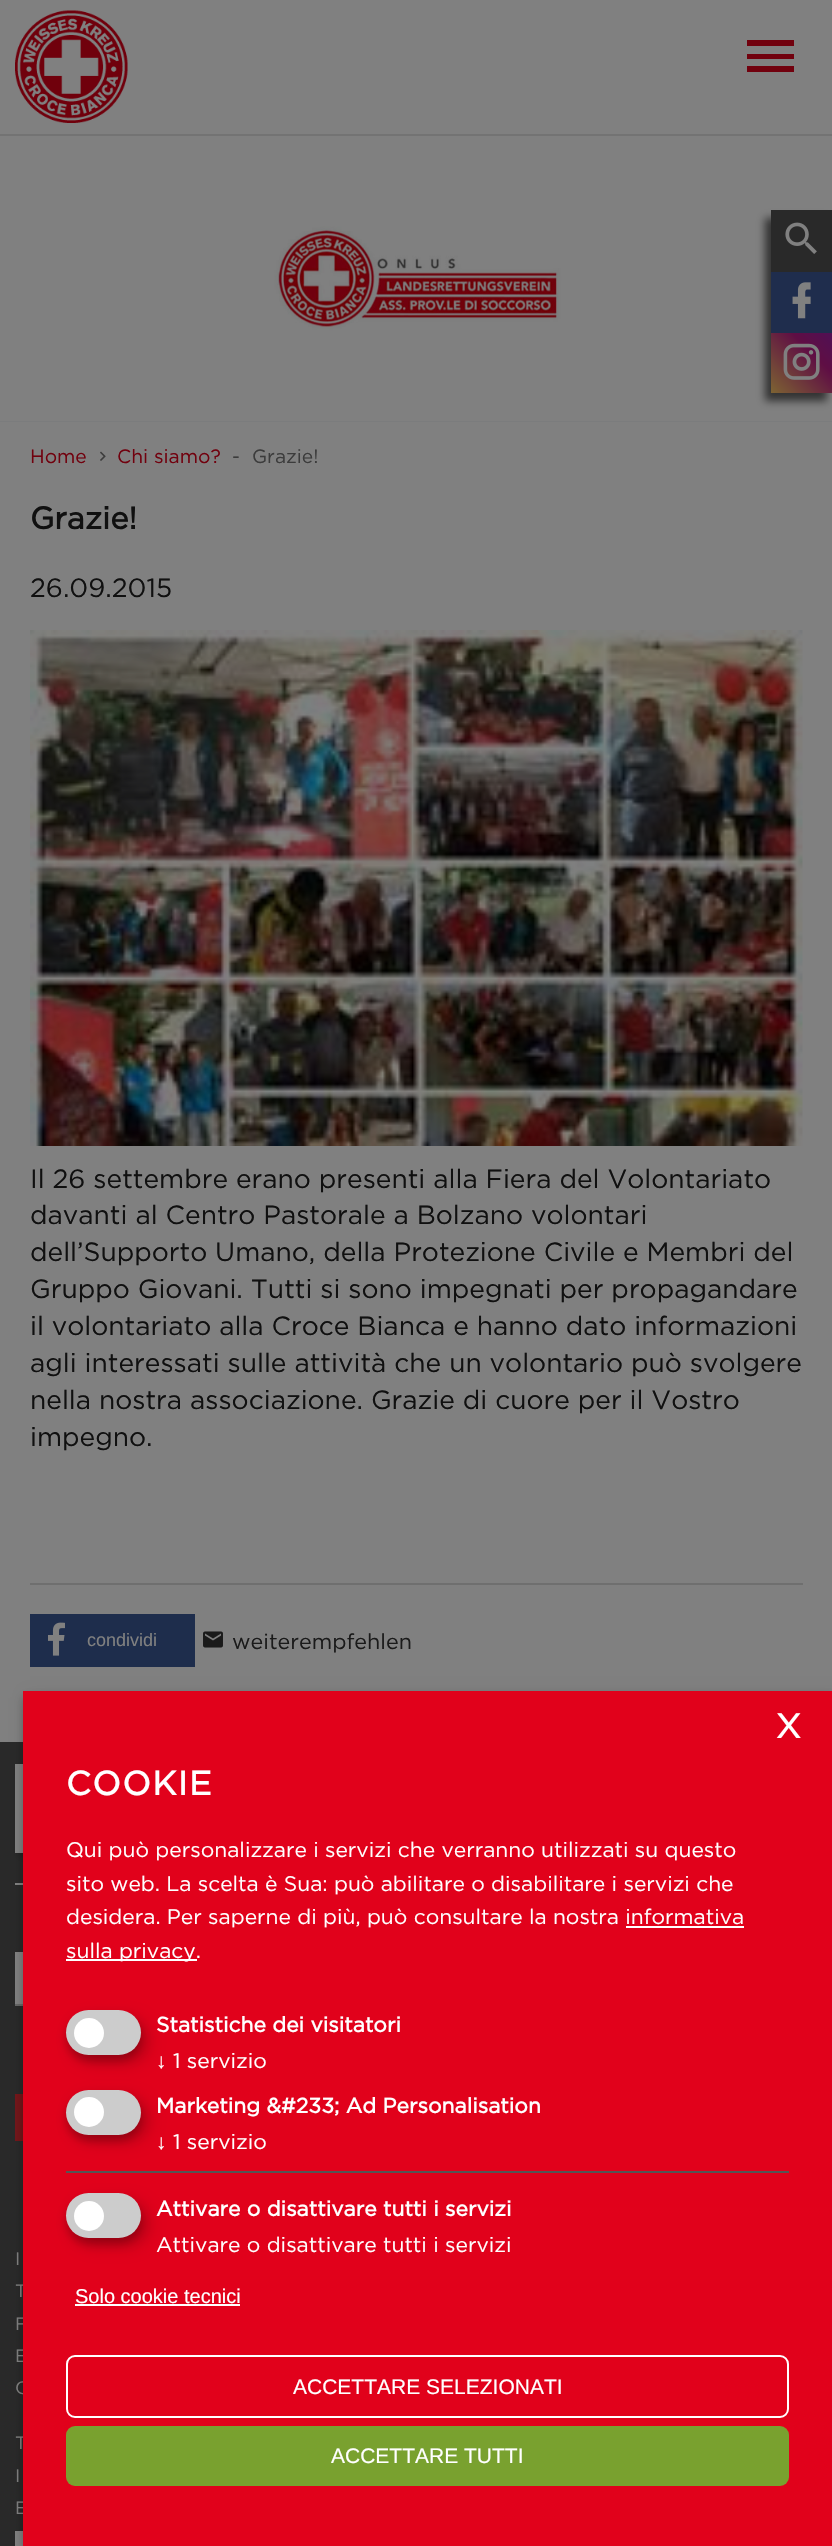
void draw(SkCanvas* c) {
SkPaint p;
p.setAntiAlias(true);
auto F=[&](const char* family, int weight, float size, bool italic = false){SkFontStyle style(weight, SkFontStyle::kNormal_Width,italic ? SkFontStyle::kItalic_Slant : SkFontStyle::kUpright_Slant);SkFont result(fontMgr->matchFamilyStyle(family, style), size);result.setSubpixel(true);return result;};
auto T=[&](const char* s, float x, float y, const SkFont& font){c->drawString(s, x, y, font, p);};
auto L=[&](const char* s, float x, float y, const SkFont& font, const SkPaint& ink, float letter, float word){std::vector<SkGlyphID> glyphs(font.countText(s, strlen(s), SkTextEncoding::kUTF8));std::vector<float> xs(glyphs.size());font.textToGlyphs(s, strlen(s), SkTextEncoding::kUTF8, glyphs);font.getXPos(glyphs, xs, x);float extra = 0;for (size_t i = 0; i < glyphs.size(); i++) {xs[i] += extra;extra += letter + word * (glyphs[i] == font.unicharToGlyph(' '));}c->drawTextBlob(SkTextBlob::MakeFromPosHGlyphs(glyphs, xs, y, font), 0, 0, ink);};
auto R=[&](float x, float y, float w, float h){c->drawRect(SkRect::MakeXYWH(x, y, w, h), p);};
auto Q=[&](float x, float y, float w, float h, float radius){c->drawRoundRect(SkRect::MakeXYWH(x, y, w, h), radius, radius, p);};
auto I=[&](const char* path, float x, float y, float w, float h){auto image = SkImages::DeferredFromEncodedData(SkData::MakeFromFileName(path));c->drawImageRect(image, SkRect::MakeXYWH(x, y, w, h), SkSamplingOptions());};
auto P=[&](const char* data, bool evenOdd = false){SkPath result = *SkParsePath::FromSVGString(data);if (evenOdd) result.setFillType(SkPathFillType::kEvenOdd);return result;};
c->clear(0xff808080);
p.setColor(0xff737373);
R(0,134,832,2);
I("1.png",15,10,113,113);
p.setColor(0xff71010e);
c->drawPath(P("M747 40h47v6h-47zm0 14h47v5h-47zm0 12h47v6h-47z"),p);
p.setColor(0xff727476);
R(0,421,832,1);
I("2.png",0,136,832,286);
p.setColor(0xff333333);
p.setMaskFilter(SkMaskFilter::MakeBlur(kNormal_SkBlurStyle, 4));
c->drawRect(SkRect::MakeXYWH(765,218,62,183),p);
p.setMaskFilter(nullptr);
p.setColor(0xff292929);
R(771,210,61,62);
I("3.png",785,222,32,32);
p.setColor(0xff1f2d4d);
R(771,272,61,61);
I("4.png",792,282,19,37);
{
const SkColor colors[] = {0xff7d6332,0xff5f0e44,0xff501054};
const float stops[] = {0,.67,1};
const SkPoint ends[] = {{771,393}, {832,333}};
p.setShader(SkGradientShader::MakeLinear(ends, colors, stops, 3, SkTileMode::kClamp));
p.setAlpha(255);
}
R(771,333,61,60);
I("5.png",783,343,37,37);
auto f1 = F("Gotham",400,19.25);
p.setShader(nullptr);
p.setColor(0xff71010e);
T("Home",30,463,f1);
I("6.png",100,451,6,10);
T("Chi siamo?",117,463,f1);
p.setColor(0xff3c3c3c);
T("-",232,463,f1);
T("Grazie!",252,463,f1);
auto f2 = F("Gotham",700,31);
p.setColor(0xff101010);
T("Grazie!",30,529,f2);
auto f3 = F("Gotham",400,26.4);
T("26.09.2015",30,597,f3);
I("7.png",30,630,773,516);
T("Il 26 settembre erano presenti alla Fiera del Volontariato",30,1188,f3);
T("davanti al Centro Pastorale a Bolzano volontari",30,1224,f3);
T("dell’Supporto Umano, della Protezione Civile e Membri del",30,1261,f3);
T("Gruppo Giovani. Tutti si sono impegnati per propagandare",30,1298,f3);
T("il volontariato alla Croce Bianca e hanno dato informazioni",30,1335,f3);
T("agli interessati sulle attività che un volontario può svolgere",30,1372,f3);
T("nella nostra associazione. Grazie di cuore per il Vostro",30,1409,f3);
T("impegno.",30,1446,f3);
p.setColor(0xff6f6f6f);
R(30,1583,773,2);
p.setColor(0xff1e2d4c);
R(30,1614,165,53);
I("8.png",48,1622,17,34);
auto f4 = F("Liberation Sans",400,18);
p.setColor(0xff808080);
T("condividi",87,1646,f4);
I("9.png",203,1631,20,17);
auto f5 = F("Gotham",400,21.5);
p.setColor(0xff1a1a1a);
T("weiterempfehlen",232,1649,f5);
p.setColor(0xff292929);
R(0,1742,23,804);
p.setColor(0xff1a1a1a);
p.setMaskFilter(SkMaskFilter::MakeBlur(kNormal_SkBlurStyle, 4.5));
c->drawRect(SkRect::MakeXYWH(20,1767,802,89),p);
p.setMaskFilter(nullptr);
p.setColor(0xff808080);
R(15,1764,8,89);
R(15,1883,8,2);
R(15,1952,8,52);
p.setColor(0xff666666);
R(15,2004,8,2);
p.setColor(0xff73161a);
R(15,2094,8,47);
auto f6 = F("Gotham",400,18);
p.setColor(0xff808080);
T("I",15,2265,f6);
T("T",15,2297,f6);
T("F",15,2330,f6);
T("E",15,2362,f6);
T("C",15,2394,f6);
T("T",15,2449,f6);
T("I",15,2482,f6);
T("E",15,2514,f6);
p.setColor(0xff1a1a1a);
p.setMaskFilter(SkMaskFilter::MakeBlur(kNormal_SkBlurStyle, 4.5));
c->drawRect(SkRect::MakeXYWH(20,2534,802,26),p);
p.setMaskFilter(nullptr);
p.setColor(0xff808080);
R(15,2531,8,15);
p.setColor(0x30000000);
p.setMaskFilter(SkMaskFilter::MakeBlur(kNormal_SkBlurStyle, 7.5));
c->drawRect(SkRect::MakeXYWH(30,1698,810,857),p);
p.setMaskFilter(nullptr);
p.setColor(0x33000000);
p.setMaskFilter(SkMaskFilter::MakeBlur(kNormal_SkBlurStyle, 4.5));
c->drawRect(SkRect::MakeXYWH(23,1697,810,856),p);
p.setMaskFilter(nullptr);
p.setColor(0xffe1011b);
R(23,1691,809,855);
auto f7 = F("Gotham",400,48);
p.setColor(0xffffffff);
T("x",775,1738,f7);
auto f8 = F("Liberation Sans",400,20);
T("Solo cookie tecnici",75,2303,f8);
R(75,2304,165,2);
p.setStroke(true);
p.setStrokeWidth(2);
c->drawRoundRect(SkRect::MakeXYWH(67,2356,721,61),8,8,p);
auto f9 = F("Liberation Sans",400,21);
p.setStroke(false);
T("ACCETTARE SELEZIONATI",293,2394,f9);
p.setColor(0xff79a12f);
Q(66,2426,723,60,9);
p.setColor(0xffffffff);
T("ACCETTARE TUTTI",331,2463,f9);
auto f10 = F("Gotham",700,33.5);
L("COOKIE",66,1795,f10,p,1.5,0);
auto f11 = F("Gotham",400,21);
T("Qui può personalizzare i servizi che verranno utilizzati su questo",66,1857,f11);
T("sito web. La scelta è Sua: può abilitare o disabilitare i servizi che",66,1891,f11);
T("desidera. Per saperne di più, può consultare la nostra informativa",66,1924,f11);
R(66,1959,131,2);
T("sulla privacy.",66,1958,f11);
R(626,1926,118,2);
p.setColor(0x30000000);
p.setMaskFilter(SkMaskFilter::MakeBlur(kNormal_SkBlurStyle, 7.5));
c->drawRoundRect(SkRect::MakeXYWH(74,2018,75,45),22.5,22.5,p);
p.setMaskFilter(nullptr);
p.setColor(0x33000000);
p.setMaskFilter(SkMaskFilter::MakeBlur(kNormal_SkBlurStyle, 4.5));
c->drawRoundRect(SkRect::MakeXYWH(66,2016,75,45),22.5,22.5,p);
p.setMaskFilter(nullptr);
p.setColor(0xffcccccc);
Q(66,2010,75,45,22.5);
p.setColor(0xffffffff);
c->drawCircle(89,2033,15,p);
auto f12 = F("Gotham",700,21);
T("Statistiche dei visitatori",156,2032,f12);
T("↓",156,2068,f9);
T("1 servizio",173,2068,f11);
p.setColor(0x30000000);
p.setMaskFilter(SkMaskFilter::MakeBlur(kNormal_SkBlurStyle, 7.5));
c->drawRoundRect(SkRect::MakeXYWH(74,2097,75,45),22.5,22.5,p);
p.setMaskFilter(nullptr);
p.setColor(0x33000000);
p.setMaskFilter(SkMaskFilter::MakeBlur(kNormal_SkBlurStyle, 4.5));
c->drawRoundRect(SkRect::MakeXYWH(66,2096,75,45),22.5,22.5,p);
p.setMaskFilter(nullptr);
p.setColor(0xffcccccc);
Q(66,2090,75,45,22.5);
p.setColor(0xffffffff);
c->drawCircle(89,2112,15,p);
T("Marketing &#233; Ad Personalisation",156,2113,f12);
T("↓",156,2149,f9);
T("1 servizio",173,2149,f11);
p.setColor(0xff555555);
R(66,2171,723,2);
p.setColor(0x30000000);
p.setMaskFilter(SkMaskFilter::MakeBlur(kNormal_SkBlurStyle, 7.5));
c->drawRoundRect(SkRect::MakeXYWH(74,2201,75,45),22.5,22.5,p);
p.setMaskFilter(nullptr);
p.setColor(0x33000000);
p.setMaskFilter(SkMaskFilter::MakeBlur(kNormal_SkBlurStyle, 4.5));
c->drawRoundRect(SkRect::MakeXYWH(66,2199,75,45),22.5,22.5,p);
p.setMaskFilter(nullptr);
p.setColor(0xffcccccc);
Q(66,2193,75,45,22.5);
p.setColor(0xffffffff);
c->drawCircle(89,2216,15,p);
T("Attivare o disattivare tutti i servizi",156,2216,f12);
T("Attivare o disattivare tutti i servizi",156,2252,f11);
}
